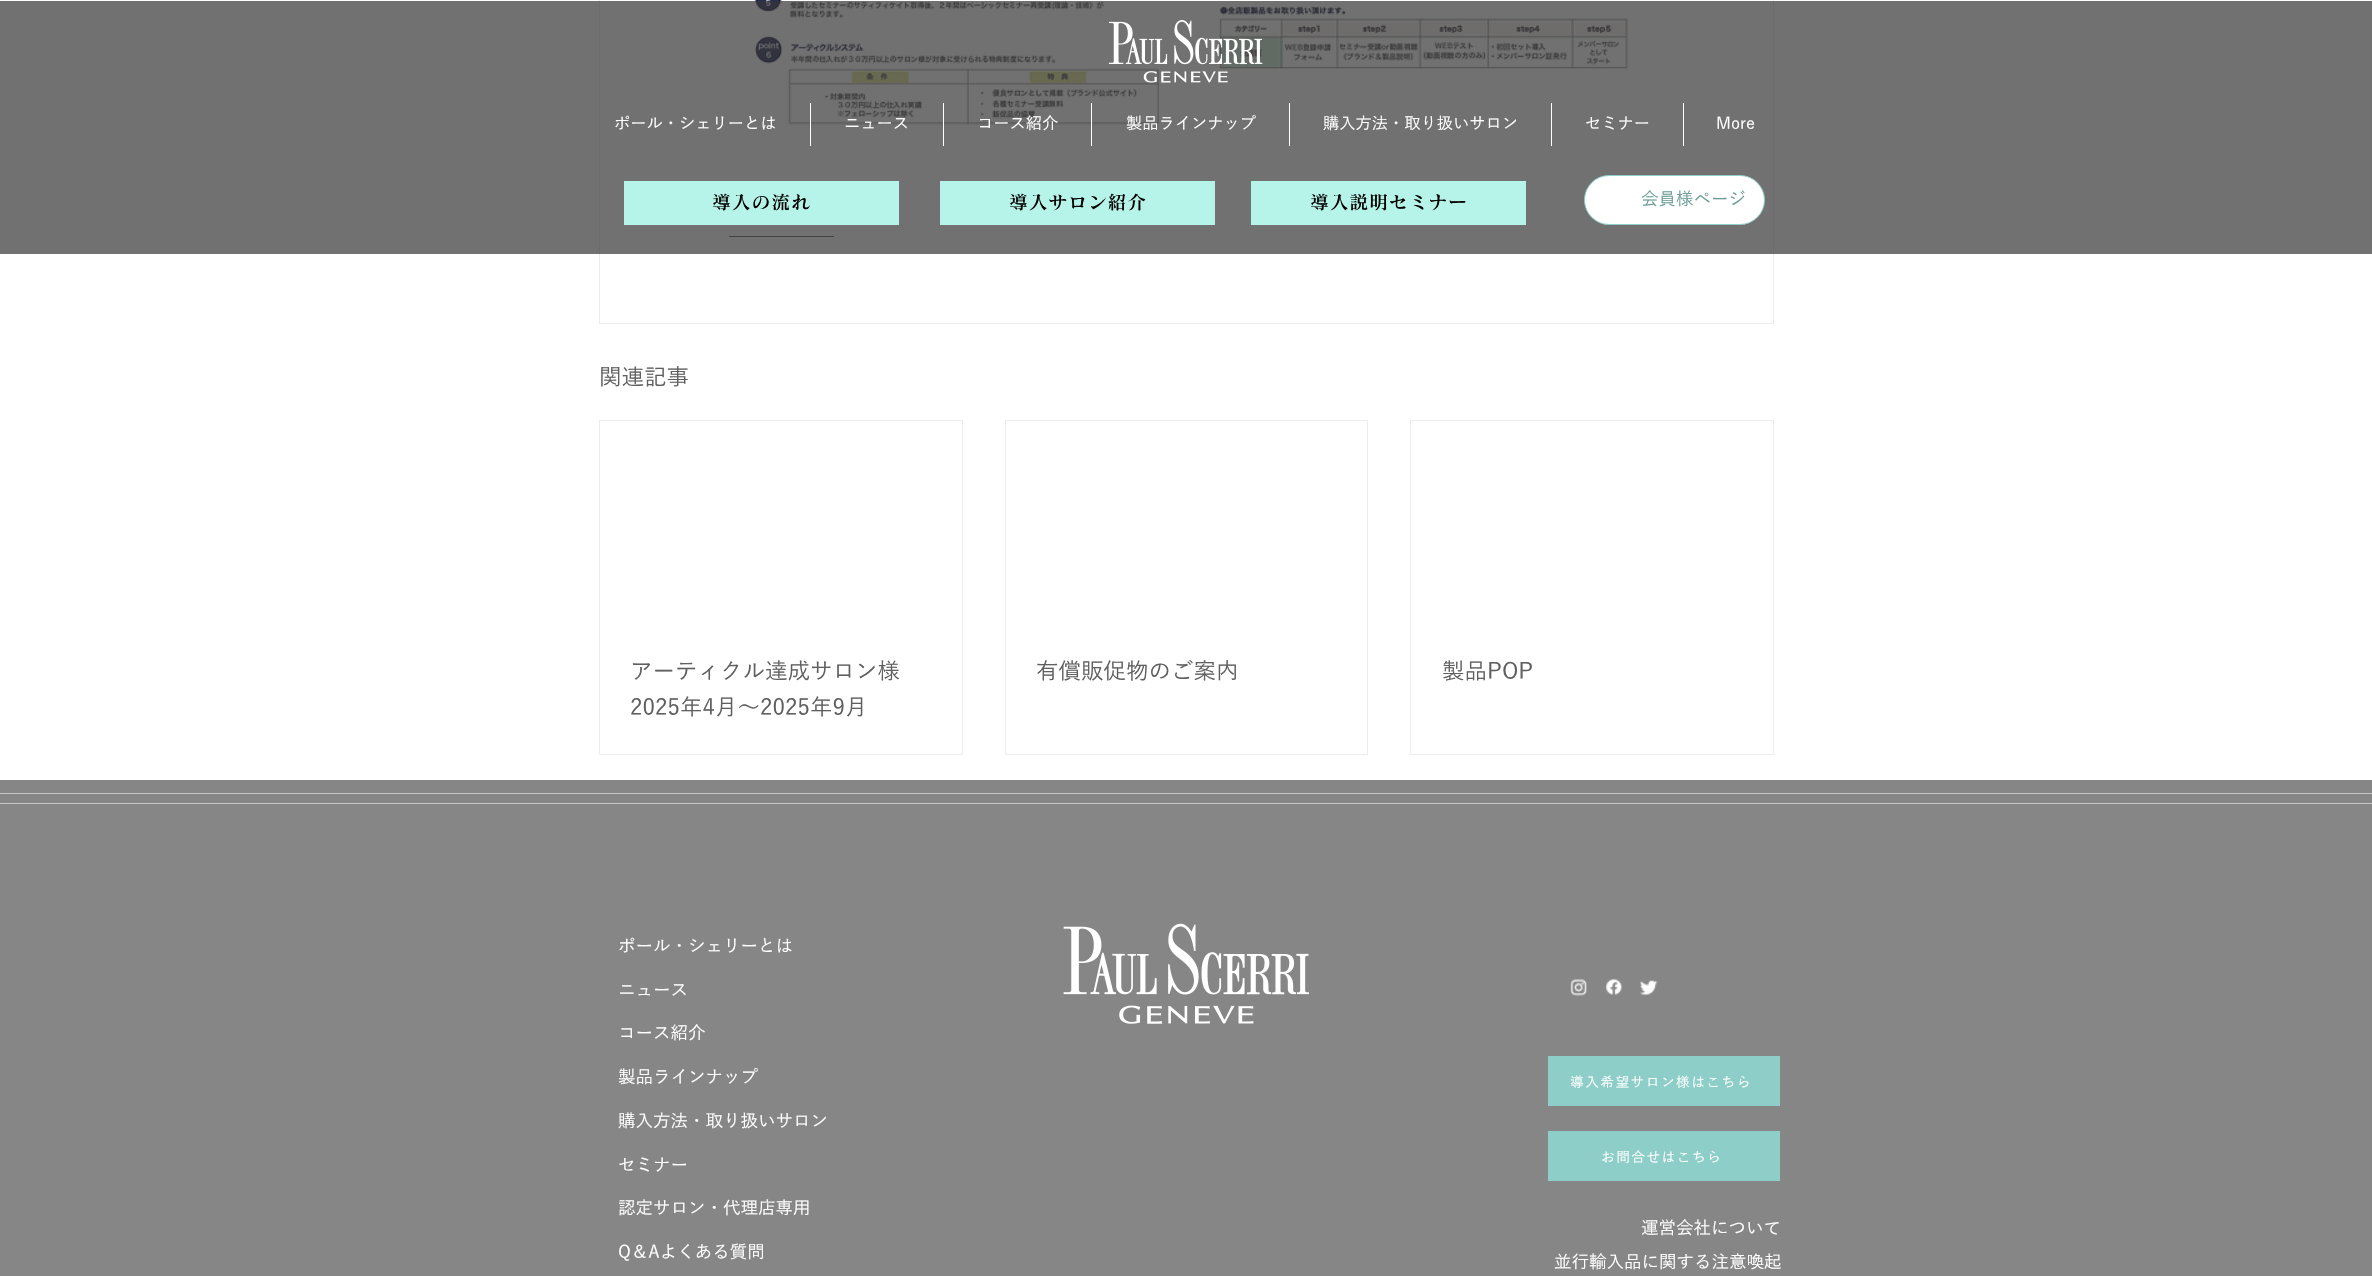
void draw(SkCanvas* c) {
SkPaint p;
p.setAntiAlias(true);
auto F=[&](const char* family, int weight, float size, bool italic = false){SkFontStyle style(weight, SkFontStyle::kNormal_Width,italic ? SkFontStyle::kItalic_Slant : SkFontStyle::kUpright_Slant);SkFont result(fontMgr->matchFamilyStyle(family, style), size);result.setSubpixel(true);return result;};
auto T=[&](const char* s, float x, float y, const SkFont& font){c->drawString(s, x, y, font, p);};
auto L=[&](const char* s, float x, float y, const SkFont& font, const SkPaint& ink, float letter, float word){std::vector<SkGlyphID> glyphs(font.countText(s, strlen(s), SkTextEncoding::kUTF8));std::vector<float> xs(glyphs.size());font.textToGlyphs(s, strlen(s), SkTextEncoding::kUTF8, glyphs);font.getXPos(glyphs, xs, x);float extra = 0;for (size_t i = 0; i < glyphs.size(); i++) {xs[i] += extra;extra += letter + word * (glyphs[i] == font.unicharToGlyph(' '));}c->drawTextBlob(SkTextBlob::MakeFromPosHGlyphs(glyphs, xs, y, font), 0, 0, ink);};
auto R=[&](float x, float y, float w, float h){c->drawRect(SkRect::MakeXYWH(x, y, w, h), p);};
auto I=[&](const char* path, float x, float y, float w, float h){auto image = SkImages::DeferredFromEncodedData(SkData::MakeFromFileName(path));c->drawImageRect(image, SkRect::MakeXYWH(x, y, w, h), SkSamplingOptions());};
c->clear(0xffffffff);
p.setStroke(true);
p.setStrokeWidth(1);
p.setColor(0xffeeecec);
c->drawRect(SkRect::MakeXYWH(599.5,-.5,1174,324),p);
I("2.png",754,0,874,125);
p.setStroke(false);
p.setColor(0xff5f5f5f);
R(729,236,105,1);
p.setColor(0xb3343434);
R(0,1,2372,253);
I("1.png",1108,20,155,63);
auto f1 = F("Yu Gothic",500,16.25);
p.setColor(0xffffffff);
T("ポール・シェリーとは",614,129,f1);
R(810,103,1,43);
T("ニュース",844,129,f1);
R(943,103,1,43);
T("コース紹介",977,129,f1);
R(1091,103,1,43);
T("製品ラインナップ",1126,129,f1);
R(1289,103,1,43);
T("購入方法・取り扱いサロン",1323,129,f1);
R(1551,103,1,43);
T("セミナー",1585,129,f1);
R(1683,103,1,43);
T("More",1716,129,f1);
p.setColor(0xffb6f3e8);
R(624,181,275,44);
auto f2 = F("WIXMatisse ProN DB",600,18.75);
p.setColor(0xff000000);
L("導入の流れ",712,209,f2,p,1,0);
p.setColor(0xffb6f3e8);
R(940,181,275,44);
p.setColor(0xff000000);
L("導入サロン紹介",1009,209,f2,p,1,0);
p.setColor(0xffb6f3e8);
R(1251,181,275,44);
p.setColor(0xff000000);
L("導入説明セミナー",1310,209,f2,p,1,0);
p.setColor(0xffffffff);
c->drawRoundRect(SkRect::MakeXYWH(1584.5,175.5,180,49),24.5,24.5,p);
p.setStroke(true);
p.setColor(0xff8dcec8);
c->drawRoundRect(SkRect::MakeXYWH(1584.5,175.5,180,49),24.5,24.5,p);
auto f3 = F("Yu Gothic",500,17.5);
p.setStroke(false);
p.setColor(0xff6a9b96);
T("会員様ページ",1641,205,f3);
auto f4 = F("Yu Gothic",500,22.5);
p.setColor(0xff5f5f5f);
T("関連記事",599,385,f4);
p.setStroke(true);
p.setColor(0xffeeecec);
c->drawRect(SkRect::MakeXYWH(599.5,420.5,363,334),p);
p.setStroke(false);
p.setColor(0xff5f5f5f);
T("アーティクル達成サロン様",630,679,f4);
T("2025年4月～2025年9月",630,715,f4);
p.setStroke(true);
p.setColor(0xffeeecec);
c->drawRect(SkRect::MakeXYWH(1005.5,420.5,362,334),p);
p.setStroke(false);
p.setColor(0xff5f5f5f);
T("有償販促物のご案内",1036,679,f4);
p.setStroke(true);
p.setColor(0xffeeecec);
c->drawRect(SkRect::MakeXYWH(1410.5,420.5,363,334),p);
p.setStroke(false);
p.setColor(0xff5f5f5f);
T("製品POP",1442,679,f4);
p.setColor(0xff868686);
R(0,780,2372,496);
p.setColor(0xffc7c7c7);
R(0,793,2372,1);
R(0,803,2372,1);
p.setColor(0xffffffff);
T("ポール・シェリーとは",618,952,f3);
T("ニュース",618,996,f3);
T("コース紹介",618,1039,f3);
T("製品ラインナップ",618,1083,f3);
T("購入方法・取り扱いサロン",618,1127,f3);
T("セミナー",618,1171,f3);
T("認定サロン・代理店専用",618,1214,f3);
T("Q＆Aよくある質問",618,1258,f3);
I("3.png",1063,923,246,101);
I("4.png",1570,979,17,17);
I("5.png",1605,978,18,17);
I("6.png",1640,980,18,16);
p.setColor(0xff8dcec8);
R(1548,1056,232,50);
auto f5 = F("Yu Gothic",500,13.75);
p.setColor(0xffffffff);
L("導入希望サロン様はこちら",1570,1087,f5,p,1.4,0);
p.setColor(0xff8dcec8);
R(1548,1131,232,50);
p.setColor(0xffffffff);
L("お問合せはこちら",1601,1162,f5,p,1.4,0);
T("運営会社について",1641,1234,f3);
T("並行輸入品に関する注意喚起",1554,1268,f3);
}
